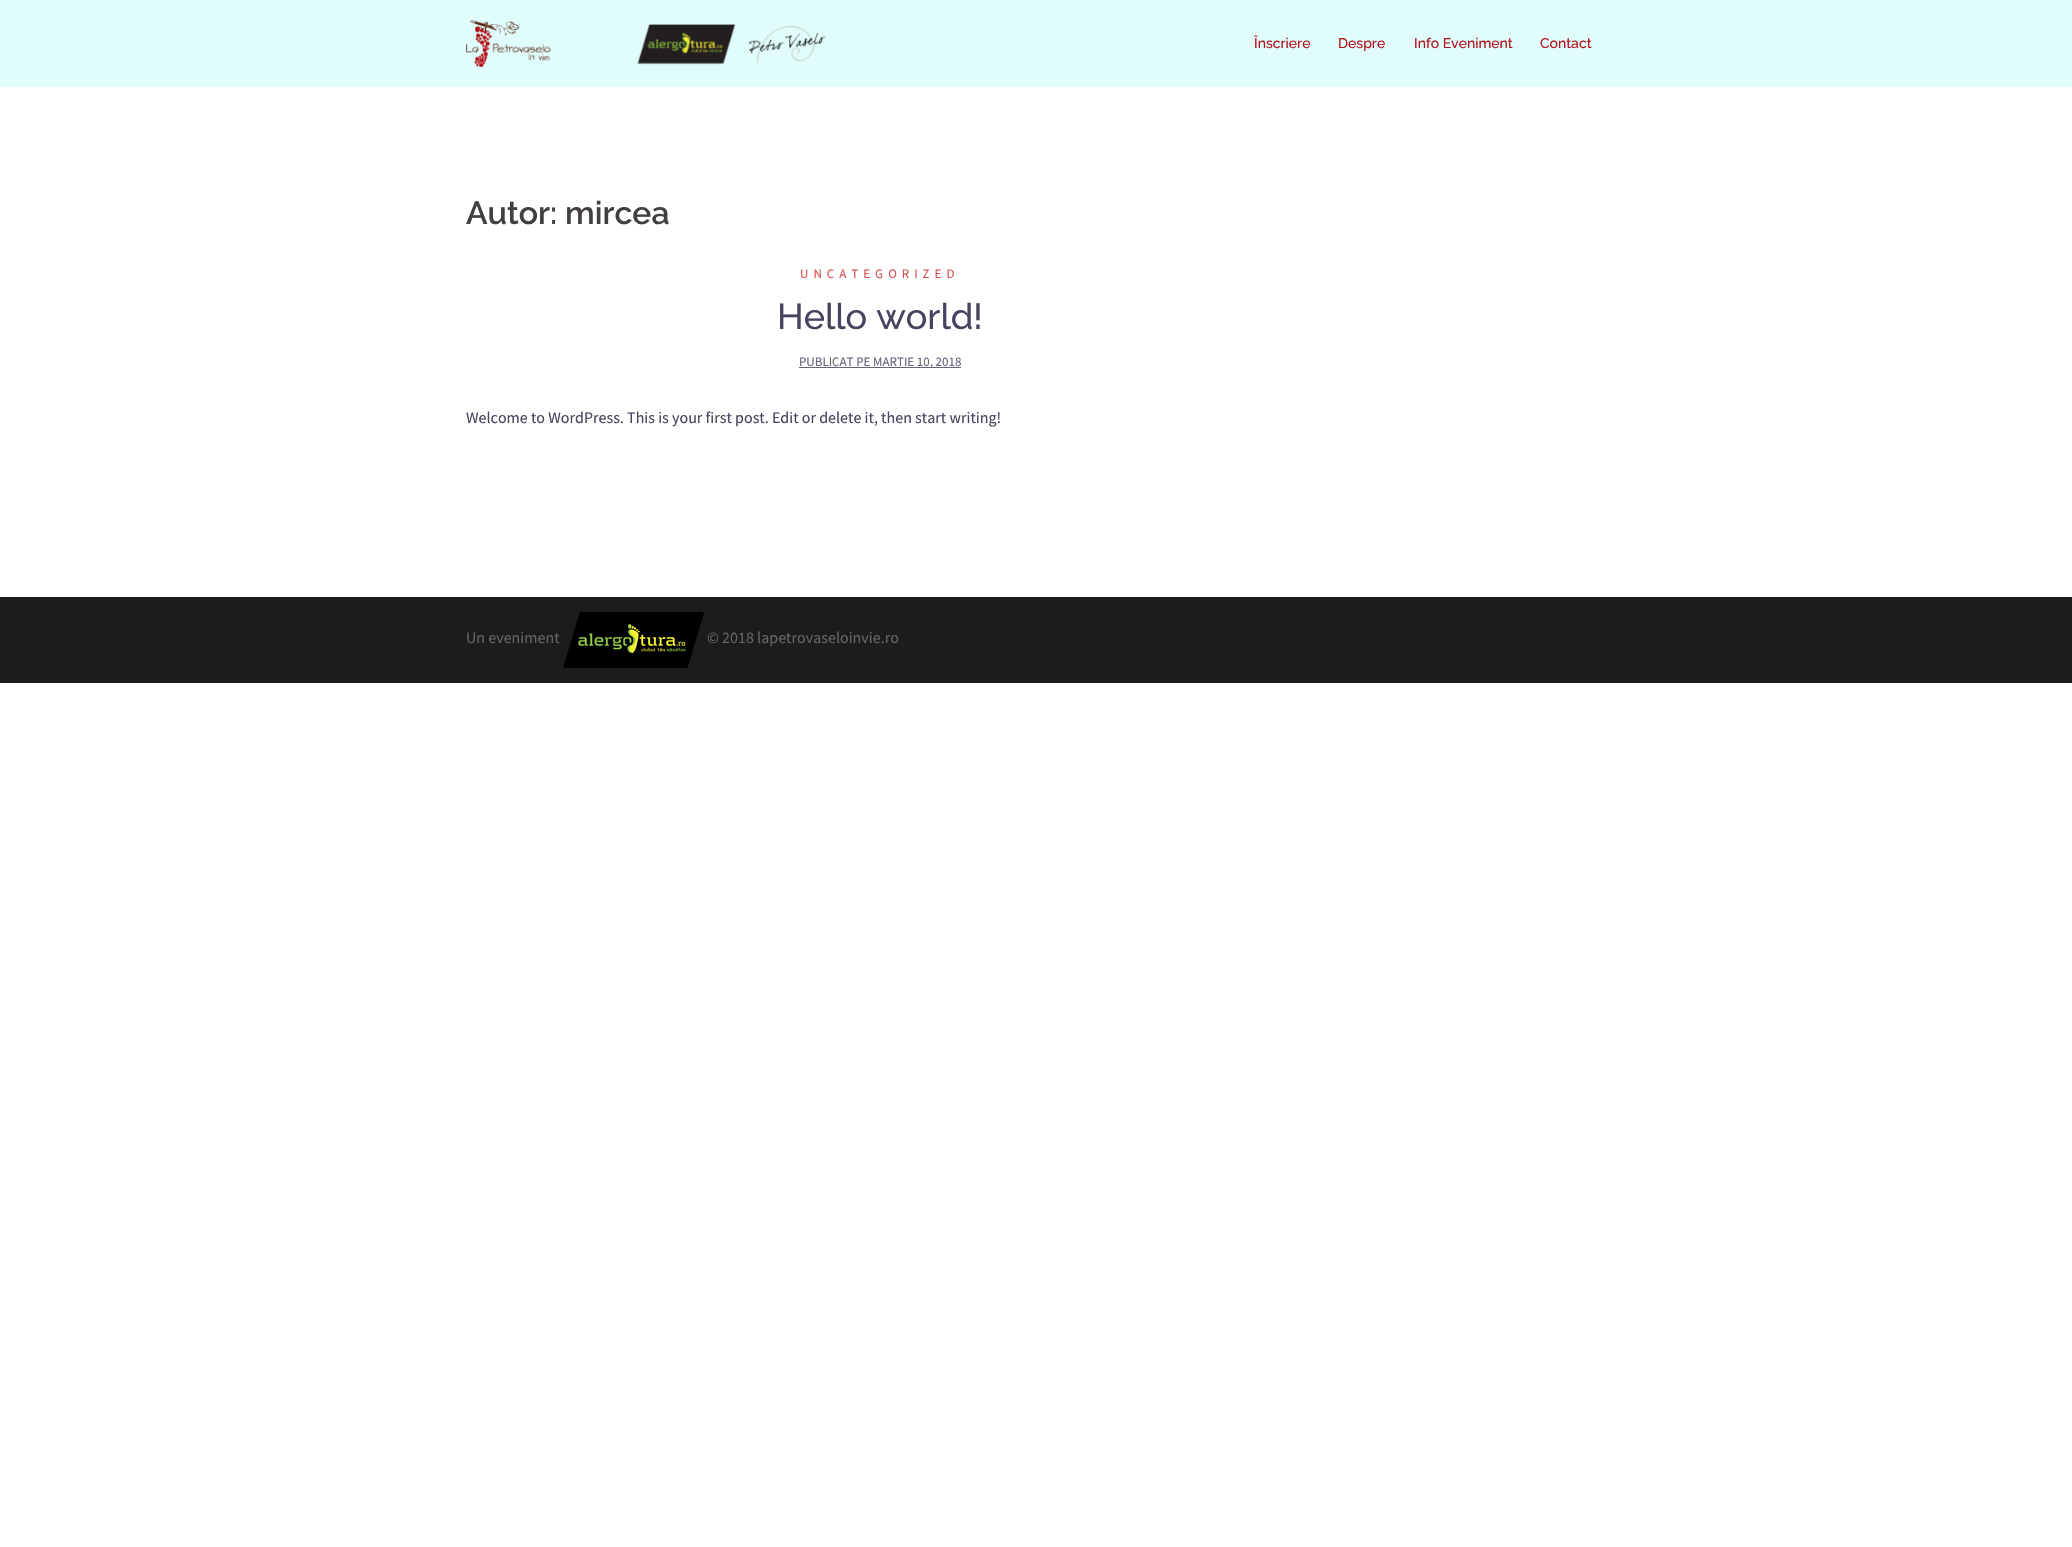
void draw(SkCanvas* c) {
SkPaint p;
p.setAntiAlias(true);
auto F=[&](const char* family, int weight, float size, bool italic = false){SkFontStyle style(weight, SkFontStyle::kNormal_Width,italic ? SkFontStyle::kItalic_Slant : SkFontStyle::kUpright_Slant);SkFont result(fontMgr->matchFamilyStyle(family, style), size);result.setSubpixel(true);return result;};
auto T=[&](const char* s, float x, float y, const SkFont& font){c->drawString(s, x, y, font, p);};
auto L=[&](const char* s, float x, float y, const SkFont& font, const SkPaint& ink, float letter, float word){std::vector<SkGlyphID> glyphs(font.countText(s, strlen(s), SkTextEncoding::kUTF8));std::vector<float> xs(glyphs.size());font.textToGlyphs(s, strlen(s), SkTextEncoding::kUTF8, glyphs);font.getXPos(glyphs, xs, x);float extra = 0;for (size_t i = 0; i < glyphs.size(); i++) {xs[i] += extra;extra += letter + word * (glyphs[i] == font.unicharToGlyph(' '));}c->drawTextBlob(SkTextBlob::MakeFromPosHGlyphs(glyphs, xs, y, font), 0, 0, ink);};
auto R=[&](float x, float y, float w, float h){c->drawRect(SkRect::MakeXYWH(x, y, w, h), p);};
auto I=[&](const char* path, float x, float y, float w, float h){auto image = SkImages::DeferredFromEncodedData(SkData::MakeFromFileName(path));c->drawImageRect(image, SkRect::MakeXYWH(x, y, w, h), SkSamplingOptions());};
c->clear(0xffffffff);
p.setColor(0xffe0fcfb);
R(0,0,2072,87);
I("1.png",466,20,360,47);
auto f1 = F("Raleway",500,14);
p.setColor(0xffb5121b);
T("Înscriere",1254,48,f1);
T("Despre",1338,48,f1);
T("Info Eveniment",1414,48,f1);
T("Contact",1540,48,f1);
auto f2 = F("Raleway",600,32);
p.setColor(0xff443f3f);
T("Autor: mircea",466,224,f2);
auto f3 = F("Source Sans Pro",400,13);
p.setColor(0xffd65050);
L("UNCATEGORIZED",800,278,f3,p,5,0);
auto f4 = F("Raleway",500,36);
p.setColor(0xff47425d);
T("Hello world!",777,329,f4);
p.setColor(0xff68647a);
R(799,367,162,1);
T("PUBLICAT PE MARTIE 10, 2018",799,366,f3);
auto f5 = F("Source Sans Pro",400,16);
p.setColor(0xff47425d);
T("Welcome to WordPress. This is your first post. Edit or delete it, then start writing!",466,423,f5);
p.setColor(0xff1c1c1c);
R(0,597,2072,86);
p.setColor(0xff666666);
T("Un eveniment",466,643,f5);
I("2.png",563,612,141,56);
T("© 2018 lapetrovaseloinvie.ro",707,643,f5);
}
